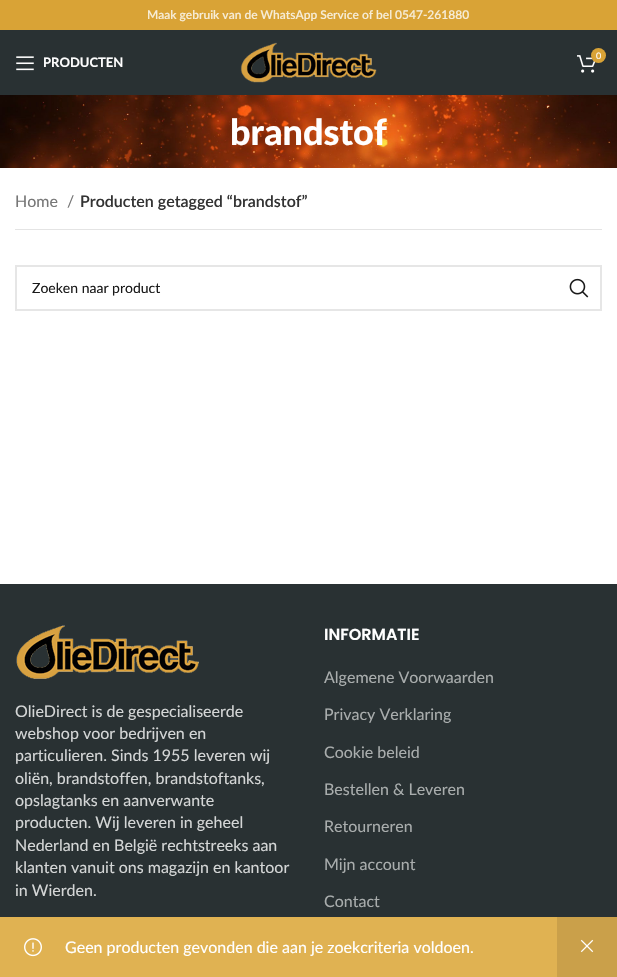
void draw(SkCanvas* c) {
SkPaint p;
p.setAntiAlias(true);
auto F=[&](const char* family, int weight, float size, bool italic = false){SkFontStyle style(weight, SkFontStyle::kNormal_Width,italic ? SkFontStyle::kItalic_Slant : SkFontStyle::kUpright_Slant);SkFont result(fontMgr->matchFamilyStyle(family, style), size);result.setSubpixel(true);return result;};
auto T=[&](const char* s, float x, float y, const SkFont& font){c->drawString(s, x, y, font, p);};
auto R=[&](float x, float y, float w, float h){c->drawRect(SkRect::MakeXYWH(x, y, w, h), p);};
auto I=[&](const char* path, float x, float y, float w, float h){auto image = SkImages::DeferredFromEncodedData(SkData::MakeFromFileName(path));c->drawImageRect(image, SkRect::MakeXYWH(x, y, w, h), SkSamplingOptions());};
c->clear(0xffffffff);
p.setColor(0xffd9a336);
R(0,0,617,30);
auto f1 = F("Lato",600,12);
p.setColor(0xfff7edd7);
T("Maak gebruik van de WhatsApp Service of bel 0547-261880",147,19,f1);
p.setColor(0xff293133);
R(0,30,617,65);
I("1.png",240,42,137,41);
I("2.png",577,55,19,18);
p.setColor(0xffd9a336);
c->drawCircle(598.5,55.5,7.5,p);
auto f2 = F("Lato",400,9);
p.setColor(0xffffffff);
T("0",596,59,f2);
I("3.png",16,56,18,15);
auto f3 = F("Lato",700,13);
T("PRODUCTEN",43,67,f3);
I("4.png",0,95,617,73);
auto f4 = F("Lato",900,36);
T("brandstof",230,145,f4);
p.setColor(0xffe4e4e4);
R(15,229,587,1);
auto f5 = F("Lato",400,16);
p.setColor(0xff777777);
T("Home",15,207,f5);
T("/",67,207,f5);
auto f6 = F("Lato",600,16);
p.setColor(0xff333333);
T("Producten getagged “brandstof”",80,207,f6);
p.setStroke(true);
p.setStrokeWidth(2);
p.setColor(0xffe6e6e6);
c->drawRect(SkRect::MakeXYWH(16,266,585,44),p);
auto f7 = F("Lato",400,14);
p.setStroke(false);
p.setColor(0xff1a1a1a);
T("Zoeken naar product",32,293,f7);
I("5.png",569,278,20,20);
p.setColor(0xffe0b252);
R(0,917,557,60);
I("6.png",24,938,18,19);
p.setColor(0xffffffff);
T("Geen producten gevonden die aan je zoekcriteria voldoen.",65,953,f5);
p.setColor(0xffcaa04a);
R(557,917,60,60);
I("7.png",580,939,14,14);
p.setColor(0xff293133);
R(0,584,617,333);
I("8.png",16,625,183,54);
p.setColor(0xffd4d6d6);
T("OlieDirect is de gespecialiseerde",15,717,f5);
T("webshop voor bedrijven en",15,739,f5);
T("particulieren. Sinds 1955 leveren wij",15,761,f5);
T("oliën, brandstoffen, brandstoftanks,",15,784,f5);
T("opslagtanks en aanverwante",15,806,f5);
T("producten. Wij leveren in geheel",15,828,f5);
T("Nederland en België rechtstreeks aan",15,851,f5);
T("klanten vanuit ons magazijn en kantoor",15,873,f5);
T("in Wierden.",15,896,f5);
auto f8 = F("Poppins",600,16);
p.setColor(0xffffffff);
T("INFORMATIE",324,640,f8);
p.setColor(0xffa9adad);
T("Algemene Voorwaarden",324,683,f5);
T("Privacy Verklaring",324,720,f5);
T("Cookie beleid",324,758,f5);
T("Bestellen & Leveren",324,795,f5);
T("Retourneren",324,832,f5);
T("Mijn account",324,870,f5);
T("Contact",324,907,f5);
}
